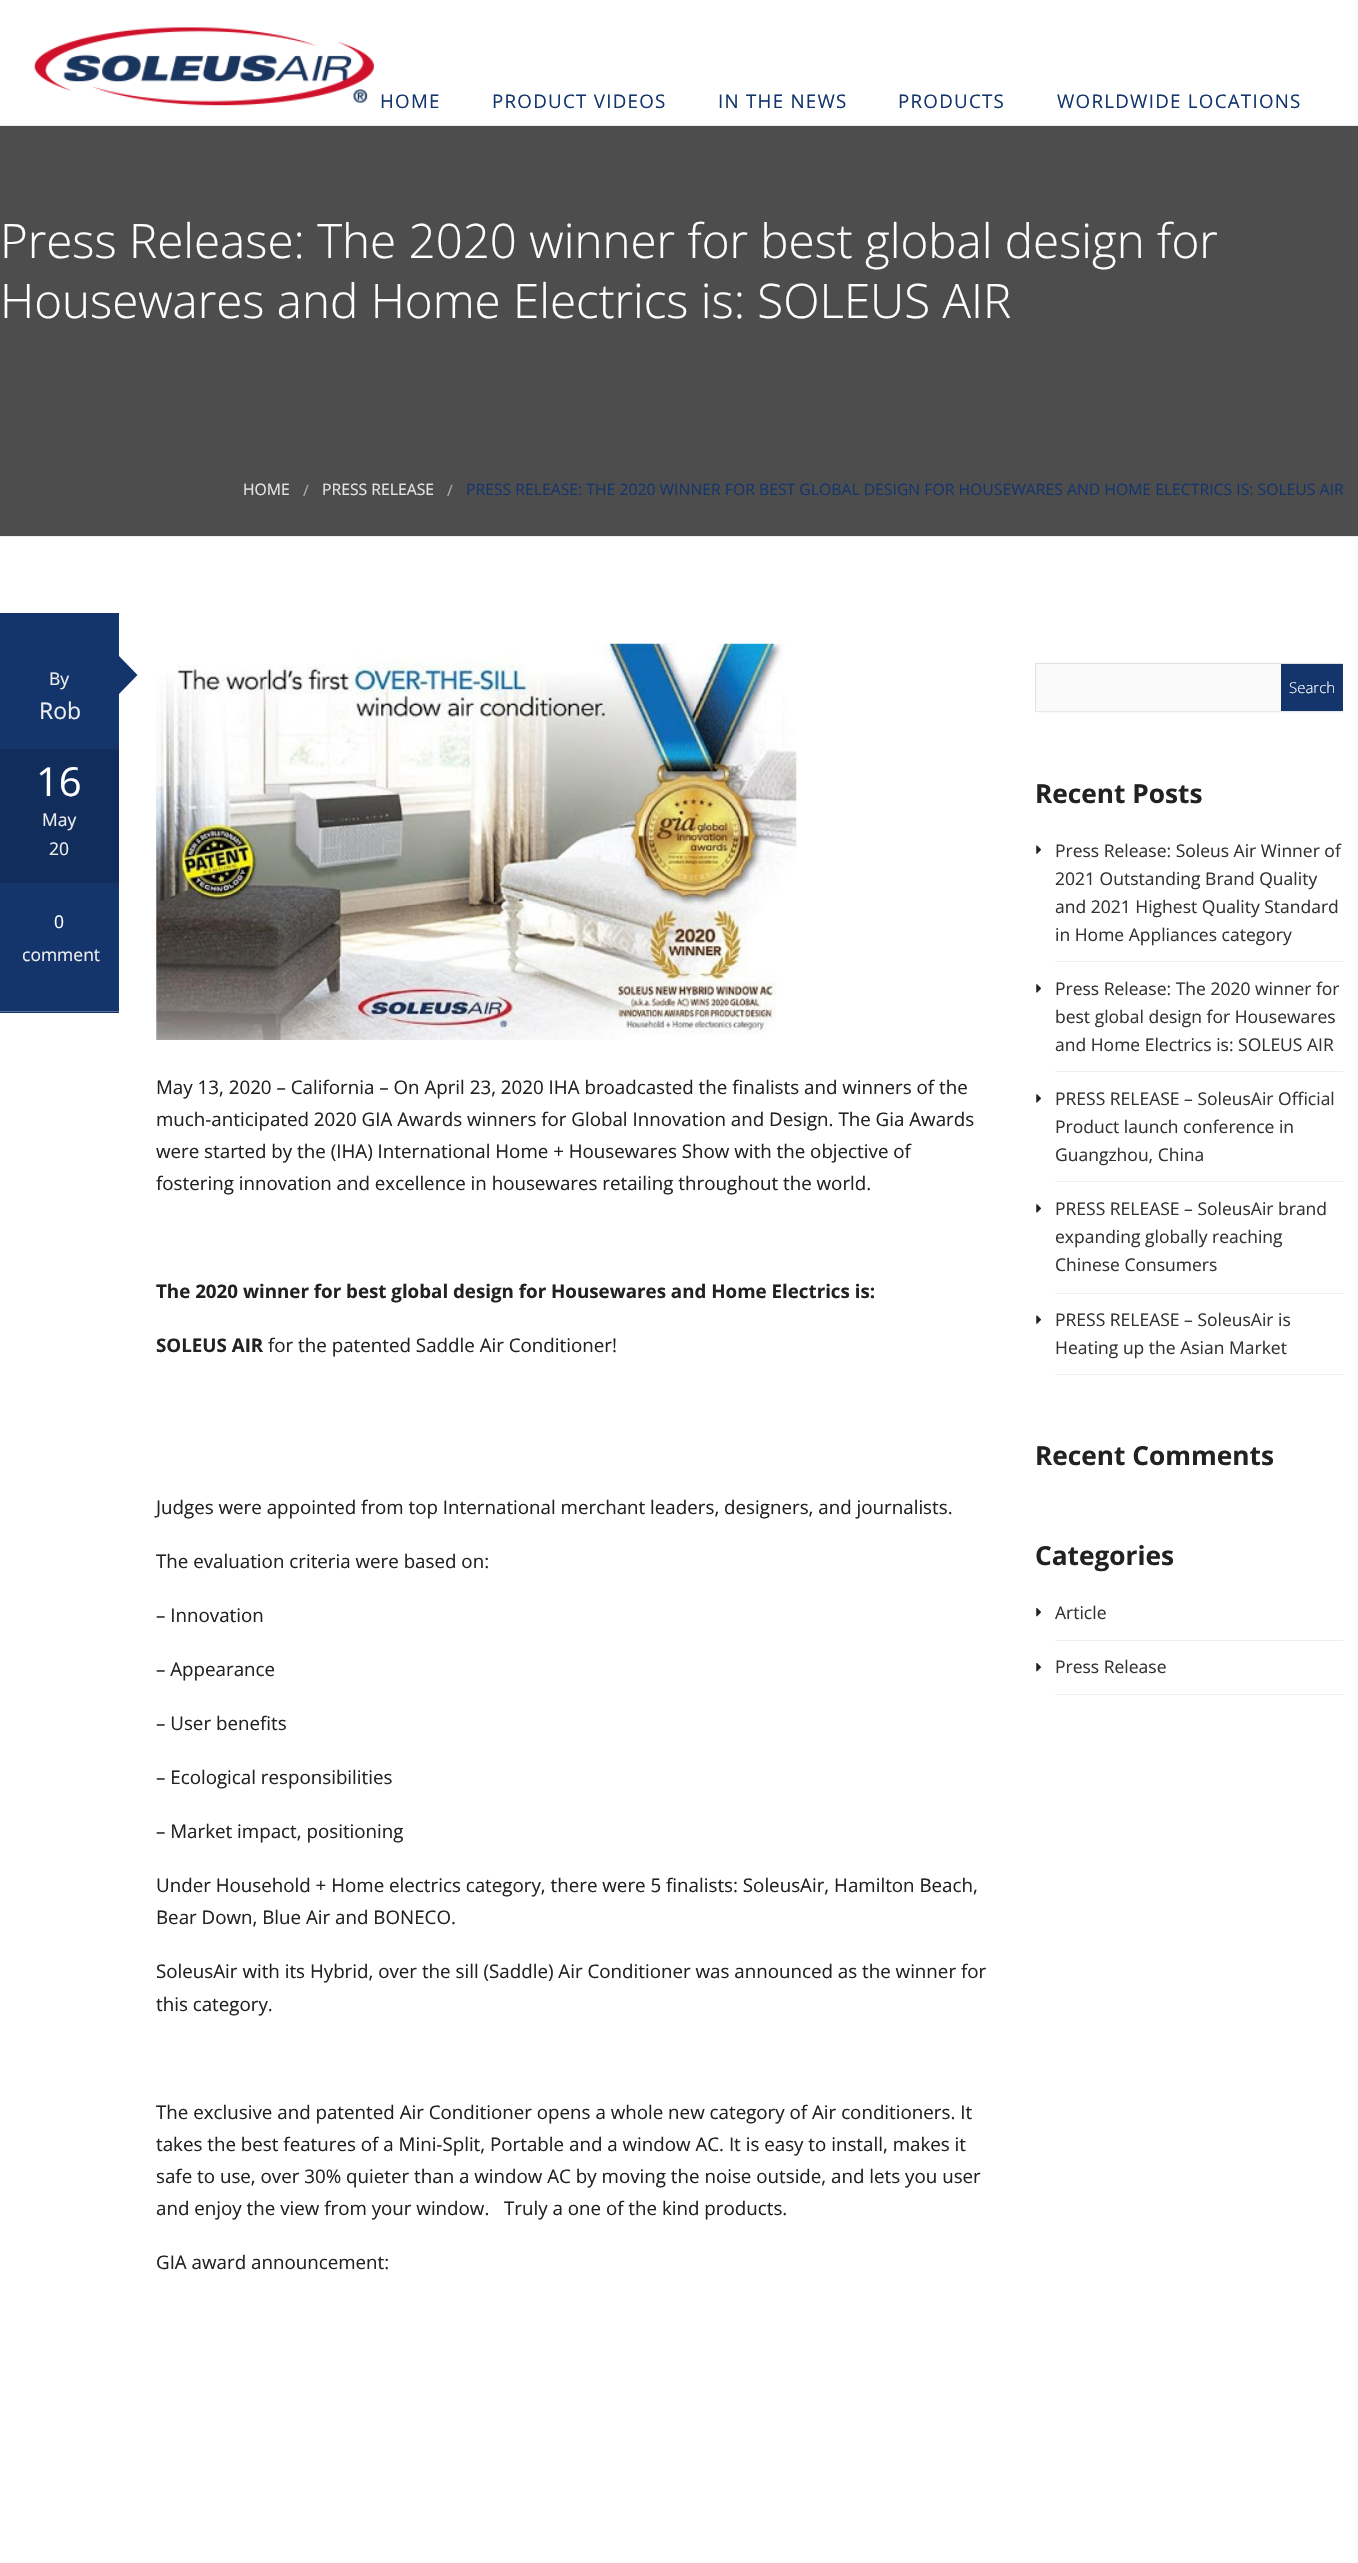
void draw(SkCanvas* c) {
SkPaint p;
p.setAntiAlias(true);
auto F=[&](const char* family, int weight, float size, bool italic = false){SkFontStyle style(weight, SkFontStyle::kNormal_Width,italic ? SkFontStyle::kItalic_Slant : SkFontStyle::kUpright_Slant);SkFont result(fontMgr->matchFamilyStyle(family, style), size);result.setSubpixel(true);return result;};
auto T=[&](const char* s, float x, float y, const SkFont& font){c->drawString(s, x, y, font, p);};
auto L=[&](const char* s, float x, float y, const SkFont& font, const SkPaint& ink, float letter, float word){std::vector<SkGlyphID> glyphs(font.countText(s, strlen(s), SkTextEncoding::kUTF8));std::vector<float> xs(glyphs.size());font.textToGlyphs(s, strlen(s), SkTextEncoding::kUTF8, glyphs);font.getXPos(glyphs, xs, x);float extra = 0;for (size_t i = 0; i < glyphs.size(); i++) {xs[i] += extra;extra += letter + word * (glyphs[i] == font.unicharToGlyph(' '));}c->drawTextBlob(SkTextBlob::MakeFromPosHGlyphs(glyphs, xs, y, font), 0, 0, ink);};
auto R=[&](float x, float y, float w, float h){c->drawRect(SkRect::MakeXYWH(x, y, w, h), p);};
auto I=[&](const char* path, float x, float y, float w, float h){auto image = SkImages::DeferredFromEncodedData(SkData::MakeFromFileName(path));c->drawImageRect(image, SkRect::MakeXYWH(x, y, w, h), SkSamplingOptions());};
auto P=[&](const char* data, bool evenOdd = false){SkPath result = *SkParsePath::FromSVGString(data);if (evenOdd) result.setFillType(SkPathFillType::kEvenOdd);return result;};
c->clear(0xffffffff);
I("1.png",34,27,340,79);
auto f1 = F("Open Sans",400,18.75);
p.setColor(0xff14356c);
L("HOME",380,108,f1,p,1.25,0);
L("PRODUCT VIDEOS",492,108,f1,p,1.25,0);
L("IN THE NEWS",718,108,f1,p,1.25,0);
L("PRODUCTS",898,108,f1,p,1.25,0);
L("WORLDWIDE LOCATIONS",1057,108,f1,p,1.25,0);
p.setColor(0xffebeded);
R(0,125,1358,1);
R(0,536,1358,1);
p.setColor(0xff4d4d4d);
R(0,126,1358,410);
auto f2 = F("Open Sans",300,47.5);
p.setColor(0xffffffff);
T("Press Release: The 2020 winner for best global design for",0,258,f2);
T("Housewares and Home Electrics is: SOLEUS AIR",0,318,f2);
auto f3 = F("Open Sans",400,15.75);
p.setColor(0xffe4e4e4);
T("HOME",243,495,f3);
p.setColor(0xffaaaaaa);
T("/",303,496,f3);
p.setColor(0xffe4e4e4);
T("PRESS RELEASE",322,495,f3);
p.setColor(0xffaaaaaa);
T("/",447,496,f3);
p.setColor(0xff14356c);
T("PRESS RELEASE: THE 2020 WINNER FOR BEST GLOBAL DESIGN FOR HOUSEWARES AND HOME ELECTRICS IS: SOLEUS AIR",466,495,f3);
R(0,613,119,400);
p.setColor(0xff5b7298);
R(0,1011,119,1);
auto f4 = F("Open Sans",400,17.5);
p.setColor(0xffeeeeee);
T("By",49,685,f4);
auto f5 = F("Open Sans",400,23);
T("Rob",39,719,f5);
p.setColor(0xff14356c);
c->drawPath(P("M119 694v-38l18.5 19z"),p);
p.setColor(0xff112d5c);
R(0,749,119,134);
auto f6 = F("Open Sans",400,40);
p.setColor(0xffffffff);
T("16",36,796,f6);
p.setColor(0xffeeeeee);
T("May",42,826,f4);
T("20",49,855,f4);
p.setColor(0xffffffff);
T("0",54,928,f4);
p.setColor(0xffeeeeee);
T("comment",22,961,f4);
I("2.png",156,643,641,397);
p.setColor(0xff222222);
T("May 13, 2020 – California – On April 23, 2020 IHA broadcasted the finalists and winners of the",156,1094,f1);
T("much-anticipated 2020 GIA Awards winners for Global Innovation and Design. The Gia Awards",156,1126,f1);
T("were started by the (IHA) International Home + Housewares Show with the objective of",156,1158,f1);
T("fostering innovation and excellence in housewares retailing throughout the world.",156,1190,f1);
auto f7 = F("Open Sans",700,18.75);
T("The 2020 winner for best global design for Housewares and Home Electrics is:",156,1298,f7);
T("SOLEUS AIR",156,1352,f7);
T("for the patented Saddle Air Conditioner!",268,1352,f1);
T("Judges were appointed from top International merchant leaders, designers, and journalists.",156,1514,f1);
T("The evaluation criteria were based on:",156,1568,f1);
T("– Innovation",156,1622,f1);
T("– Appearance",156,1676,f1);
T("– User benefits",156,1730,f1);
T("– Ecological responsibilities",156,1784,f1);
T("– Market impact, positioning",156,1838,f1);
T("Under Household + Home electrics category, there were 5 finalists: SoleusAir, Hamilton Beach,",156,1892,f1);
T("Bear Down, Blue Air and BONECO.",156,1924,f1);
T("SoleusAir with its Hybrid, over the sill (Saddle) Air Conditioner was announced as the winner for",156,1978,f1);
T("this category.",156,2011,f1);
T("The exclusive and patented Air Conditioner opens a whole new category of Air conditioners. It",156,2119,f1);
T("takes the best features of a Mini-Split, Portable and a window AC. It is easy to install, makes it",156,2151,f1);
T("safe to use, over 30% quieter than a window AC by moving the noise outside, and lets you user",156,2183,f1);
T("and enjoy the view from your window.   Truly a one of the kind products.",156,2215,f1);
T("GIA award announcement:",156,2269,f1);
p.setColor(0xfffafafa);
R(1035,664,308,49);
c->save();
c->clipRect(SkRect::MakeXYWH(1035,663,308,48));
p.setColor(0xffe1e1e1);
c->drawPath(P("M911 539h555v296h-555zm125 125h308v48h-308z",true),p);
c->restore();
p.setColor(0xffe7e7e7);
R(1035,711,308,1);
p.setColor(0xff14356c);
R(1281,664,62,47);
auto f8 = F("Open Sans",300,15);
p.setColor(0xffffffff);
T("Search",1289,693,f8);
auto f9 = F("Open Sans",700,26.25);
p.setColor(0xff222222);
T("Recent Posts",1035,803,f9);
p.setColor(0xffeeeeee);
R(1055,961,288,1);
I("3.png",1036,845,5,9);
p.setColor(0xff333333);
T("Press Release: Soleus Air Winner of",1055,857,f4);
T("2021 Outstanding Brand Quality",1055,885,f4);
T("and 2021 Highest Quality Standard",1055,913,f4);
T("in Home Appliances category",1055,941,f4);
p.setColor(0xffeeeeee);
R(1055,1071,288,1);
I("4.png",1036,984,5,9);
p.setColor(0xff333333);
T("Press Release: The 2020 winner for",1055,995,f4);
T("best global design for Housewares",1055,1023,f4);
T("and Home Electrics is: SOLEUS AIR",1055,1051,f4);
p.setColor(0xffeeeeee);
R(1055,1181,288,1);
I("4.png",1036,1094,5,9);
p.setColor(0xff333333);
T("PRESS RELEASE – SoleusAir Official",1055,1105,f4);
T("Product launch conference in",1055,1133,f4);
T("Guangzhou, China",1055,1161,f4);
p.setColor(0xffeeeeee);
R(1055,1293,288,1);
I("4.png",1036,1204,5,9);
p.setColor(0xff333333);
T("PRESS RELEASE – SoleusAir brand",1055,1215,f4);
T("expanding globally reaching",1055,1243,f4);
T("Chinese Consumers",1055,1271,f4);
p.setColor(0xffeeeeee);
R(1055,1374,288,1);
I("3.png",1036,1315,5,9);
p.setColor(0xff333333);
T("PRESS RELEASE – SoleusAir is",1055,1326,f4);
T("Heating up the Asian Market",1055,1354,f4);
p.setColor(0xff222222);
T("Recent Comments",1035,1465,f9);
T("Categories",1035,1565,f9);
p.setColor(0xffeeeeee);
R(1055,1640,288,1);
I("5.png",1036,1607,5,10);
p.setColor(0xff333333);
T("Article",1055,1619,f4);
p.setColor(0xffeeeeee);
R(1055,1694,288,1);
I("5.png",1036,1662,5,10);
p.setColor(0xff333333);
T("Press Release",1055,1673,f4);
}
